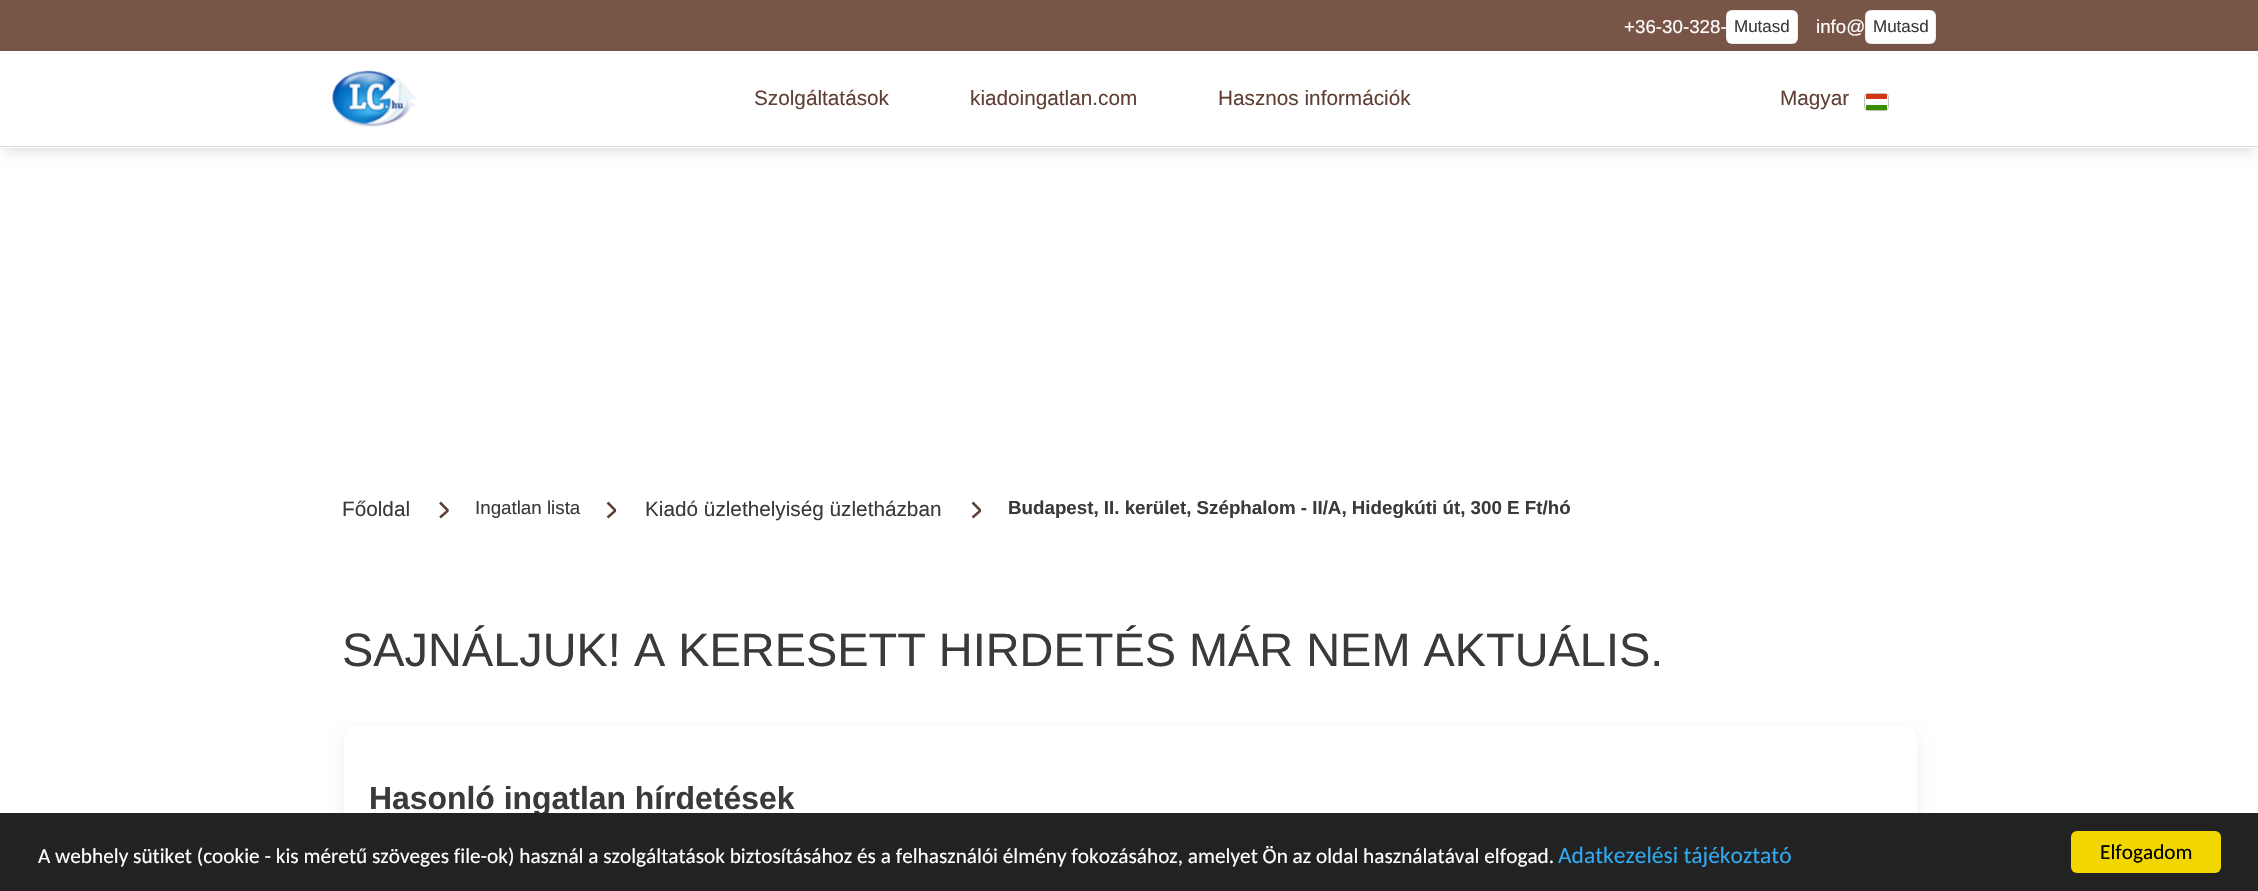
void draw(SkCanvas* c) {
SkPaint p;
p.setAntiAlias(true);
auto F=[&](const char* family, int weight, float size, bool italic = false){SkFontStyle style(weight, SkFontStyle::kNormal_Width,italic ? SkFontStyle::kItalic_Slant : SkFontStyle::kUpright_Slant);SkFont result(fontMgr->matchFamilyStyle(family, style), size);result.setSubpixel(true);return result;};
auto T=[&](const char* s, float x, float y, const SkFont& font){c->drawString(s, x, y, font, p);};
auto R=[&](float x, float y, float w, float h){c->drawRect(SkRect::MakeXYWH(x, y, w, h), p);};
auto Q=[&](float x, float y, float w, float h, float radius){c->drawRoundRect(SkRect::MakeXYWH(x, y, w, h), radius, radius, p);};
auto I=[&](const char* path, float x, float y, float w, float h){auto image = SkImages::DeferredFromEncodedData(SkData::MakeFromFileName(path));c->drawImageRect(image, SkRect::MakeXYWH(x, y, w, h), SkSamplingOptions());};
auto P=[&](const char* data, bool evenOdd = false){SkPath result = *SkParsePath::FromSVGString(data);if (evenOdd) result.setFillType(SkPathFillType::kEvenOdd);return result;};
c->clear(0xffffffff);
p.setColor(0xff795548);
R(0,0,2258,51);
auto f1 = F("Liberation Sans",400,18.75);
p.setColor(0xffffffff);
T("+36-30-328-",1624,33,f1);
Q(1726,10,72,34,6);
p.setStroke(true);
p.setStrokeWidth(1);
p.setColor(0x1a515151);
c->drawRoundRect(SkRect::MakeXYWH(1726.5,10.5,71,33),5.5,5.5,p);
auto f2 = F("Liberation Sans",400,17);
p.setStroke(false);
p.setColor(0xff3a3a3a);
T("Mutasd",1734,32,f2);
p.setColor(0xffffffff);
T("info@",1816,33,f1);
Q(1865,10,71,34,6);
p.setStroke(true);
p.setColor(0x1a515151);
c->drawRoundRect(SkRect::MakeXYWH(1865.5,10.5,70,33),5.5,5.5,p);
p.setStroke(false);
p.setColor(0xff3a3a3a);
T("Mutasd",1873,32,f2);
p.setColor(0x33000000);
p.setMaskFilter(SkMaskFilter::MakeBlur(kNormal_SkBlurStyle, 7.5));
c->drawRect(SkRect::MakeXYWH(5,61,2249,87),p);
p.setMaskFilter(nullptr);
p.setColor(0xffffffff);
R(0,51,2258,97);
p.setColor(0xffdcdcdc);
R(0,146,2258,1);
I("1.png",332,70,85,57);
auto f3 = F("Liberation Sans",400,20.75);
p.setColor(0xff604034);
T("Szolgáltatások",754,105,f3);
T("kiadoingatlan.com",970,105,f3);
T("Hasznos információk",1218,105,f3);
T("Magyar",1780,105,f3);
p.setStroke(true);
p.setColor(0xffc0c0c0);
c->drawRoundRect(SkRect::MakeXYWH(1864.5,93.5,24,17),3.5,3.5,p);
c->save();
c->clipPath(P("M1867.5 94h18c1.5 0 2.5 1 2.5 2.5v11c0 1.5-1 2.5-2.5 2.5h-18c-1.5 0-2.5-1-2.5-2.5v-11c0-1.5 1-2.5 2.5-2.5z"),true);
p.setStroke(false);
p.setColor(0xffffffff);
R(1866,94,21,16);
c->restore();
p.setColor(0xff388d00);
R(1866,105,21,5);
p.setColor(0xffd43516);
R(1866,94,21,5);
p.setColor(0xff3a3a3a);
T("Főoldal",342,516,f3);
p.setStroke(true);
p.setStrokeWidth(2.5);
p.setColor(0xff604034);
c->drawPath(P("M440 502.5l7.5 7.5v1l-7.5 6.5"),p);
p.setStroke(false);
p.setColor(0xff3a3a3a);
T("Ingatlan lista",475,514,f1);
c->save();
c->clipRect(SkRect::MakeXYWH(606,469,10,82));
p.setStroke(true);
p.setColor(0xff604034);
c->drawPath(P("M607.5 502.5l7.5 7.5v1l-7.5 6.5"),p);
c->restore();
p.setStroke(false);
p.setColor(0xff3a3a3a);
T("Kiadó üzlethelyiség üzletházban",645,516,f3);
c->save();
c->clipRect(SkRect::MakeXYWH(971,469,10,82));
p.setStroke(true);
p.setColor(0xff604034);
c->drawPath(P("M972.5 502.5l7.5 7.5v1l-7.5 6.5"),p);
c->restore();
auto f4 = F("Liberation Sans",700,18.75);
p.setStroke(false);
p.setColor(0xff3a3a3a);
T("Budapest, II. kerület, Széphalom - II/A, Hidegkúti út, 300 E Ft/hó",1008,514,f4);
auto f5 = F("Liberation Sans",400,46.9);
T("SAJNÁLJUK! A KERESETT HIRDETÉS MÁR NEM AKTUÁLIS.",342,666,f5);
p.setColor(0x1f000000);
p.setMaskFilter(SkMaskFilter::MakeBlur(kNormal_SkBlurStyle, 9));
c->drawRoundRect(SkRect::MakeXYWH(348,738,1565,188),8,8,p);
p.setMaskFilter(nullptr);
p.setColor(0xffffffff);
c->drawRoundRect(SkRect::MakeXYWH(343.5,724.5,1574,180),12.5,12.5,p);
p.setStroke(true);
p.setStrokeWidth(1);
p.setColor(0xfff8f8f8);
c->drawRoundRect(SkRect::MakeXYWH(343.5,724.5,1574,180),12.5,12.5,p);
auto f6 = F("Liberation Sans",700,31.9);
p.setStroke(false);
p.setColor(0xff3a3a3a);
T("Hasonló ingatlan hírdetések",369,809,f6);
p.setColor(0xff222222);
R(0,813,2258,78);
auto f7 = F("Carlito",400,21.25);
p.setColor(0xffffffff);
T("A webhely sütiket (cookie - kis méretű szöveges file-ok) használ a szolgáltatások biztosításához és a felhasználói élmény fokozásához, amelyet Ön az oldal használatával elfogad.",38,863,f7);
auto f8 = F("Carlito",400,23.5);
p.setColor(0xff31a8f0);
T("Adatkezelési tájékoztató",1558,863,f8);
p.setColor(0xfff1d600);
Q(2071,831,150,42,6);
p.setColor(0xff000000);
T("Elfogadom",2100,859,f7);
}
